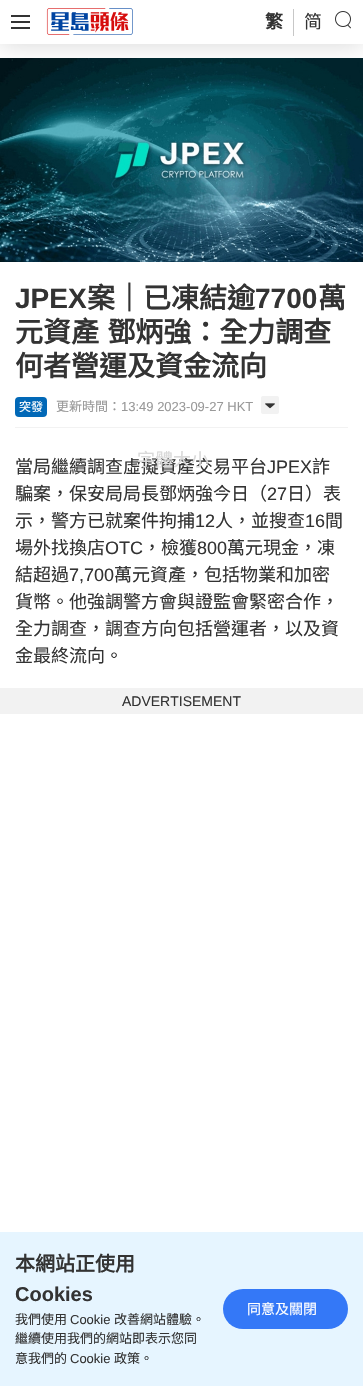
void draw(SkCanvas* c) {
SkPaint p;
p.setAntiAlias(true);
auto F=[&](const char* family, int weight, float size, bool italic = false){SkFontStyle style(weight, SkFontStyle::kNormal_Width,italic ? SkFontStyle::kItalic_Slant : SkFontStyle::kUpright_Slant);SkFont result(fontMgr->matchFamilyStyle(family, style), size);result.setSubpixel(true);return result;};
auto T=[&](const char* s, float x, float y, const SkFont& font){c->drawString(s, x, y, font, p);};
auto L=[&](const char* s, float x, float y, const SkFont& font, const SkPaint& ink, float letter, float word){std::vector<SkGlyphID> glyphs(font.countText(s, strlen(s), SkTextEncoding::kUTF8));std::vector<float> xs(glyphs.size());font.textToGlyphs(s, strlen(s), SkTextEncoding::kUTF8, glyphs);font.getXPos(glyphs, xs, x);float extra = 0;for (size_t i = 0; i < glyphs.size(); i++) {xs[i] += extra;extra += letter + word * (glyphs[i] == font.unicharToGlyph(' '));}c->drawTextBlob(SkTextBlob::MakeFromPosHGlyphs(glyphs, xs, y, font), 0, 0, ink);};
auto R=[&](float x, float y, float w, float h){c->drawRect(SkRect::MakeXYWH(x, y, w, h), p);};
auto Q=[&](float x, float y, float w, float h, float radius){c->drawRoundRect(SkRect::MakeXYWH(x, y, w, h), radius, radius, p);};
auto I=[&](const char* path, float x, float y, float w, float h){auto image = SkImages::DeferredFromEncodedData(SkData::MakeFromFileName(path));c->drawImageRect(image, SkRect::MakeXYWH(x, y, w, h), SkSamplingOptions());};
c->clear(0xffffffff);
I("3.png",0,58,363,204);
c->save();
c->clipRect(SkRect::MakeXYWH(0,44,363,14));
p.setColor(0x26000000);
p.setMaskFilter(SkMaskFilter::MakeBlur(kNormal_SkBlurStyle, 12));
c->drawRect(SkRect::MakeXYWH(0,1,363,44),p);
p.setMaskFilter(nullptr);
c->restore();
p.setColor(0xff333333);
R(11,15,19,2);
R(11,21,19,2);
R(11,27,19,2);
I("1.png",46,8,87,27);
p.setColor(0xffc7c7c7);
R(293,9,1,27);
auto f1 = F("Noto Sans CJK HK",700,18);
p.setColor(0xff333333);
T("繁",265,28,f1);
auto f2 = F("Noto Sans CJK HK",400,18);
T("简",304,28,f2);
I("2.png",335,11,16,18);
auto f3 = F("Liberation Sans",700,28);
T("JPEX",15,308,f3);
auto f4 = F("Noto Sans CJK HK",700,28);
T("案｜已凍結逾",87,308,f4);
T("7700",255,308,f3);
T("萬",318,308,f4);
L("元資產 鄧炳強：全力調查",15,342,f4,p,0,2);
T("何者營運及資金流向",15,376,f4);
p.setColor(0xfff2f2f2);
R(15,427,333,1);
p.setColor(0xff0168b7);
Q(15,397,32,20,4);
auto f5 = F("Noto Sans CJK HK",400,12);
p.setColor(0xffffffff);
T("突發",19,411,f5);
auto f6 = F("Noto Sans CJK HK",400,13);
p.setColor(0xff999999);
T("更新時間：",56,411,f6);
auto f7 = F("Liberation Sans",400,13);
T("13:49 2023-09-27 HKT",121,411,f7);
I("4.png",261,396,18,18);
p.setColor(0xff333333);
T("當局繼續調查虛擬資產交易平台",15,473,f2);
p.setColor(0xffd9d9d9);
T("字體大小",137,466,f2);
auto f8 = F("Liberation Sans",400,18);
p.setColor(0xff333333);
T("JPEX",267,473,f8);
T("詐",312,473,f2);
T("騙案，保安局局長鄧炳強今日（",15,500,f2);
T("27",267,500,f8);
T("日）表",287,500,f2);
T("示，警方已就案件拘捕",15,527,f2);
T("12",195,527,f8);
T("人，並搜查",215,527,f2);
T("16",305,527,f8);
T("間",325,527,f2);
T("場外找換店",15,554,f2);
T("OTC",105,554,f8);
T("，檢獲",143,554,f2);
T("800",197,554,f8);
T("萬元現金，凍",227,554,f2);
T("結超過",15,581,f2);
T("7,700",69,581,f8);
T("萬元資產，包括物業和加密",114,581,f2);
T("貨幣。他強調警方會與證監會緊密合作，",15,608,f2);
T("全力調查，調查方向包括營運者，以及資",15,635,f2);
T("金最終流向。",15,662,f2);
p.setColor(0xfff2f2f2);
R(0,688,363,26);
auto f9 = F("Liberation Sans",400,14);
p.setColor(0xff333333);
T("ADVERTISEMENT",122,706,f9);
p.setColor(0xffe6f5ff);
R(0,1232,363,154);
auto f10 = F("Noto Sans CJK HK",700,20);
p.setColor(0xff333333);
T("本網站正使用",15,1271,f10);
auto f11 = F("Liberation Sans",700,20);
T("Cookies",15,1301,f11);
T("我們使用",15,1324,f6);
T("Cookie",70,1324,f7);
T("改善網站體驗。",114,1324,f6);
T("繼續使用我們的網站即表示您同",15,1343,f6);
T("意我們的",15,1363,f6);
T("Cookie",70,1363,f7);
T("政策。",114,1363,f6);
p.setColor(0xff3478f7);
Q(223,1289,125,40,20);
auto f12 = F("Noto Sans CJK HK",400,14);
p.setColor(0xffffffff);
T("同意及關閉",247,1314,f12);
}
